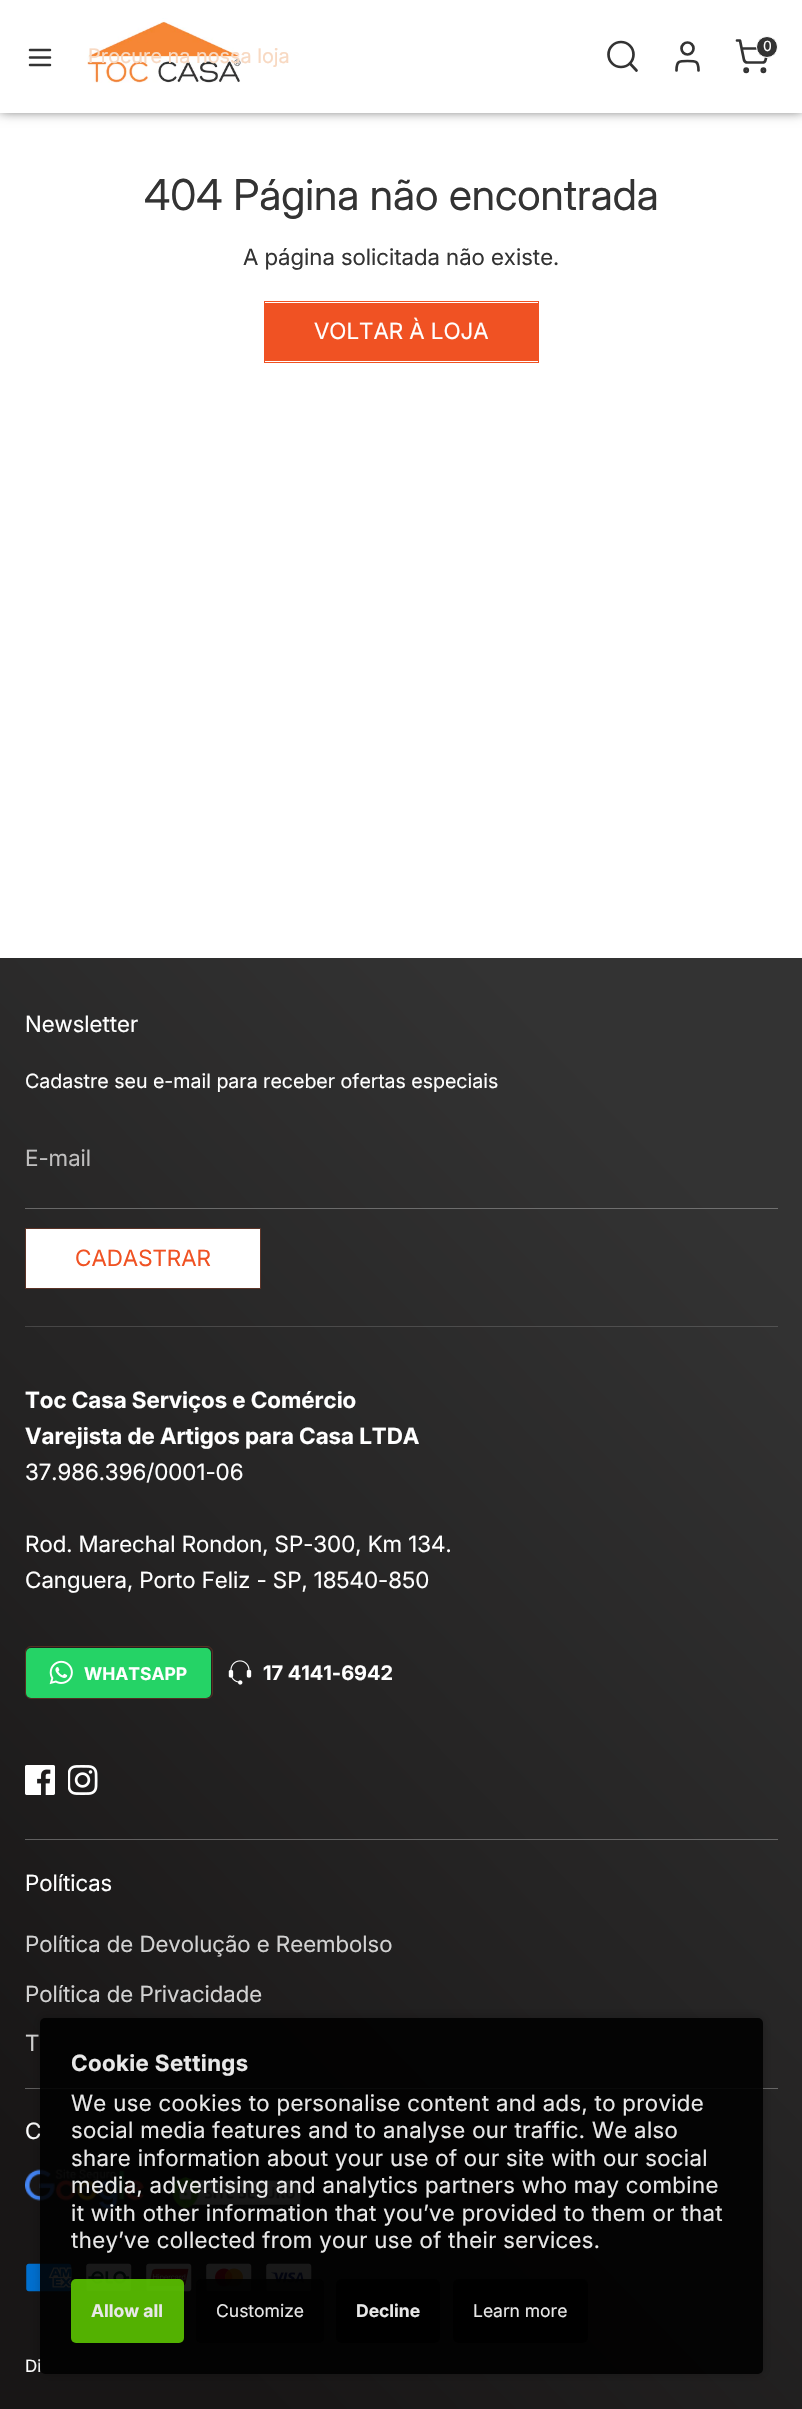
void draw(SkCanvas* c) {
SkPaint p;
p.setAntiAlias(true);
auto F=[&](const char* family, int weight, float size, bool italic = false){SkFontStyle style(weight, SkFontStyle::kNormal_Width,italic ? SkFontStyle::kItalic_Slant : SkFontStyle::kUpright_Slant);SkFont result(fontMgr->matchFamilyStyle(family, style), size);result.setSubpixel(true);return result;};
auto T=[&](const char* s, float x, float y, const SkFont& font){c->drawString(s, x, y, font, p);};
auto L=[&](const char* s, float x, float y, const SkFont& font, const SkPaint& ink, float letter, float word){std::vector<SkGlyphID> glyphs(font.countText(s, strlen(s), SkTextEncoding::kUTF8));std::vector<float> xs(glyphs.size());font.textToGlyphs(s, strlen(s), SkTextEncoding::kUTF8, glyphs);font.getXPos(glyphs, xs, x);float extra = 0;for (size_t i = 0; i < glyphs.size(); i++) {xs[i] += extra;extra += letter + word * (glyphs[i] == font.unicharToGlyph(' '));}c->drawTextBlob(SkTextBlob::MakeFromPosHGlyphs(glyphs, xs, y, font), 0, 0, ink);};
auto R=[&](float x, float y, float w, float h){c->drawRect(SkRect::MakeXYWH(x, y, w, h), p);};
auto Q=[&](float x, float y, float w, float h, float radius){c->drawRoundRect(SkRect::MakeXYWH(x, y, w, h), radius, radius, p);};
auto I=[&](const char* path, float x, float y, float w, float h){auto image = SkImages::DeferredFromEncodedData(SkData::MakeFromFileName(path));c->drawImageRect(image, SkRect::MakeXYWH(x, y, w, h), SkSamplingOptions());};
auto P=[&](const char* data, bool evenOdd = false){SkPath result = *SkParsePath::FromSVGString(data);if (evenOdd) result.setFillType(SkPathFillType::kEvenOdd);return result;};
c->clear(0xffffffff);
p.setColor(0xbf000000);
p.setMaskFilter(SkMaskFilter::MakeBlur(kNormal_SkBlurStyle, 6));
c->drawRect(SkRect::MakeXYWH(0,-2,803,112),p);
p.setMaskFilter(nullptr);
p.setColor(0xffffffff);
R(0,0,802,113);
I("1.png",87,18,155,65);
p.setStroke(true);
p.setStrokeWidth(2.5);
p.setStrokeCap(SkPaint::kRound_Cap);
p.setStrokeJoin(SkPaint::kRound_Join);
p.setColor(0xff333333);
c->drawPath(P("M30 57.5h20m-20-7.5h20m-20 15h20"),p);
auto f1 = F("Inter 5",400,20);
p.setStroke(false);
p.setColor(0xfff8d9c2);
T("Procure na nossa loja",88,63,f1);
p.setStroke(true);
p.setStrokeWidth(2.7);
p.setStrokeCap(SkPaint::kButt_Cap);
p.setStrokeJoin(SkPaint::kMiter_Join);
p.setColor(0xff333333);
c->drawCircle(621,54.5,12.5,p);
p.setStrokeCap(SkPaint::kRound_Cap);
p.setStrokeJoin(SkPaint::kRound_Join);
c->drawPath(P("M636.5 70.5l-6.5-7"),p);
c->drawPath(P("M698.5 70.5c0-9.5-2.5-9.5-11-9.5c-8.5 0-11 0-11 9.5"),p);
p.setStrokeCap(SkPaint::kButt_Cap);
p.setStrokeJoin(SkPaint::kMiter_Join);
c->drawCircle(687.5,48.5,6,p);
c->drawCircle(746.2,70.3,1.6,p);
c->drawCircle(763.4,70.3,1.6,p);
p.setStrokeCap(SkPaint::kRound_Cap);
p.setStrokeJoin(SkPaint::kRound_Join);
c->drawPath(P("M737 40.5h3l4 19.5c.5 1.5 2 2.5 3.5 2.5h15c1.5 0 3-1 3-2.5l3-11.5h-26.5"),p);
p.setStroke(false);
c->drawCircle(767,47,10.5,p);
p.setStroke(true);
p.setStrokeWidth(1);
p.setStrokeCap(SkPaint::kButt_Cap);
p.setStrokeJoin(SkPaint::kMiter_Join);
p.setColor(0xffffffff);
c->drawCircle(767,47,10.5,p);
auto f2 = F("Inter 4",400,14);
p.setStroke(false);
T("0",763,51,f2);
auto f3 = F("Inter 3",400,42.5);
p.setColor(0xff333333);
T("404 Página não encontrada",144,210,f3);
auto f4 = F("Inter",400,22.5);
T("A página solicitada não existe.",243,265,f4);
p.setStroke(true);
p.setColor(0xfff05223);
c->drawRect(SkRect::MakeXYWH(264.5,301.5,274,61),p);
p.setStroke(false);
R(265,303,273,58);
p.setColor(0xffffffff);
T("VOLTAR À LOJA",314,339,f4);
{
const SkColor colors[] = {0xff181616,0xff333333};
const float stops[] = {.13,.86};
const SkPoint ends[] = {{-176,2254}, {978,1140}};
p.setShader(SkGradientShader::MakeLinear(ends, colors, stops, 2, SkTileMode::kClamp));
p.setAlpha(255);
}
R(0,958,802,1451);
{
const SkColor colors[] = {0xff5d5c5c,0xff707070};
const float stops[] = {.13,.86};
const SkPoint ends[] = {{-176,2254}, {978,1140}};
p.setShader(SkGradientShader::MakeLinear(ends, colors, stops, 2, SkTileMode::kClamp));
p.setAlpha(255);
}
R(25,1208,753,1);
R(25,2088,753,1);
R(25,1839,753,1);
{
const SkColor colors[] = {0xff3b3939,0xff525252};
const float stops[] = {.13,.86};
const SkPoint ends[] = {{-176,2254}, {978,1140}};
p.setShader(SkGradientShader::MakeLinear(ends, colors, stops, 2, SkTileMode::kClamp));
p.setAlpha(255);
}
R(25,1326,753,1);
p.setShader(nullptr);
p.setColor(0xffffffff);
T("Newsletter",25,1032,f4);
auto f5 = F("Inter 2",400,19.7);
T("Cadastre seu e-mail para receber ofertas especiais",25,1088,f5);
p.setColor(0xffbfbebe);
T("E-mail",25,1166,f4);
p.setStroke(true);
p.setColor(0x40f05223);
c->drawRect(SkRect::MakeXYWH(25.5,1228.5,235,60),p);
p.setStroke(false);
p.setColor(0xffffffff);
R(26,1229,234,59);
p.setColor(0xfff05223);
T("CADASTRAR",75,1266,f4);
auto f6 = F("Inter",700,22.5);
p.setColor(0xffffffff);
T("Toc Casa Serviços e Comércio",25,1408,f6);
T("Varejista de Artigos para Casa LTDA",25,1444,f6);
T("37.986.396/0001-06",25,1480,f4);
T("Rod. Marechal Rondon, SP-300, Km 134.",25,1552,f4);
T("Canguera, Porto Feliz - SP, 18540-850",25,1588,f4);
p.setStroke(true);
p.setColor(0x40f05223);
c->drawRoundRect(SkRect::MakeXYWH(25.5,1646.5,187,52),5.5,5.5,p);
p.setStroke(false);
p.setColor(0xff25d366);
Q(26,1648,185,50,5);
I("2.png",49,1660,24,25);
auto f7 = F("Inter 2",700,17.5);
p.setColor(0xffffffff);
T("WHATSAPP",84,1680,f7);
I("3.png",228,1660,24,25);
auto f8 = F("Inter 3",700,20);
T("17 4141-6942",263,1680,f8);
I("4.png",25,1765,30,30);
I("5.png",68,1765,30,30);
T("Políticas",25,1891,f4);
p.setColor(0xffd2d2d2);
T("Política de Devolução e Reembolso",25,1952,f4);
T("Política de Privacidade",25,2002,f4);
T("T",25,2051,f4);
p.setColor(0xffffffff);
T("C",25,2139,f4);
I("6.png",25,2169,119,40);
I("7.png",172,2177,130,32);
I("8.png",26,2263,46,29);
I("9.png",86,2263,46,29);
I("10.png",146,2263,46,29);
I("11.png",206,2263,46,29);
I("12.png",266,2263,46,29);
auto f9 = F("Inter 4",400,17);
T("Di",25,2372,f9);
c->save();
c->clipPath(P("M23 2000h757v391h-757zm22 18h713c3 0 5 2 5 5v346c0 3-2 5-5 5h-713c-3 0-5-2-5-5v-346c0-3 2-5 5-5z",true),true);
p.setColor(0x2e000000);
p.setMaskFilter(SkMaskFilter::MakeBlur(kNormal_SkBlurStyle, 5));
c->drawRoundRect(SkRect::MakeXYWH(39,2016,725,359),6,6,p);
p.setMaskFilter(nullptr);
c->restore();
p.setColor(0xe6000000);
Q(40,2018,723,356,5);
p.setColor(0xffe8e8e8);
L("Cookie Settings",71,2071,f6,p,.38,0);
L("We use cookies to personalise content and ads, to provide",71,2111,f4,p,.38,0);
L("social media features and to analyse our traffic. We also",71,2138,f4,p,.38,0);
L("share information about your use of our site with our social",71,2166,f4,p,.38,0);
L("media, advertising and analytics partners who may combine",71,2193,f4,p,.38,0);
L("it with other information that you’ve provided to them or that",71,2221,f4,p,.38,0);
L("they’ve collected from your use of their services.",71,2248,f4,p,.38,0);
p.setColor(0xe65bc300);
Q(71,2279,113,64,5);
p.setColor(0xffe8e8e8);
T("Allow all",91,2317,f7);
p.setColor(0xe6000000);
Q(196,2279,128,64,5);
auto f10 = F("Inter 4",400,17.5);
p.setColor(0xffe8e8e8);
T("Customize",216,2317,f10);
p.setColor(0xff000000);
Q(336,2279,104,64,5);
p.setColor(0xffe8e8e8);
T("Decline",356,2317,f7);
p.setColor(0xff000000);
Q(453,2279,135,64,5);
p.setColor(0xffe8e8e8);
T("Learn more",473,2317,f10);
}
